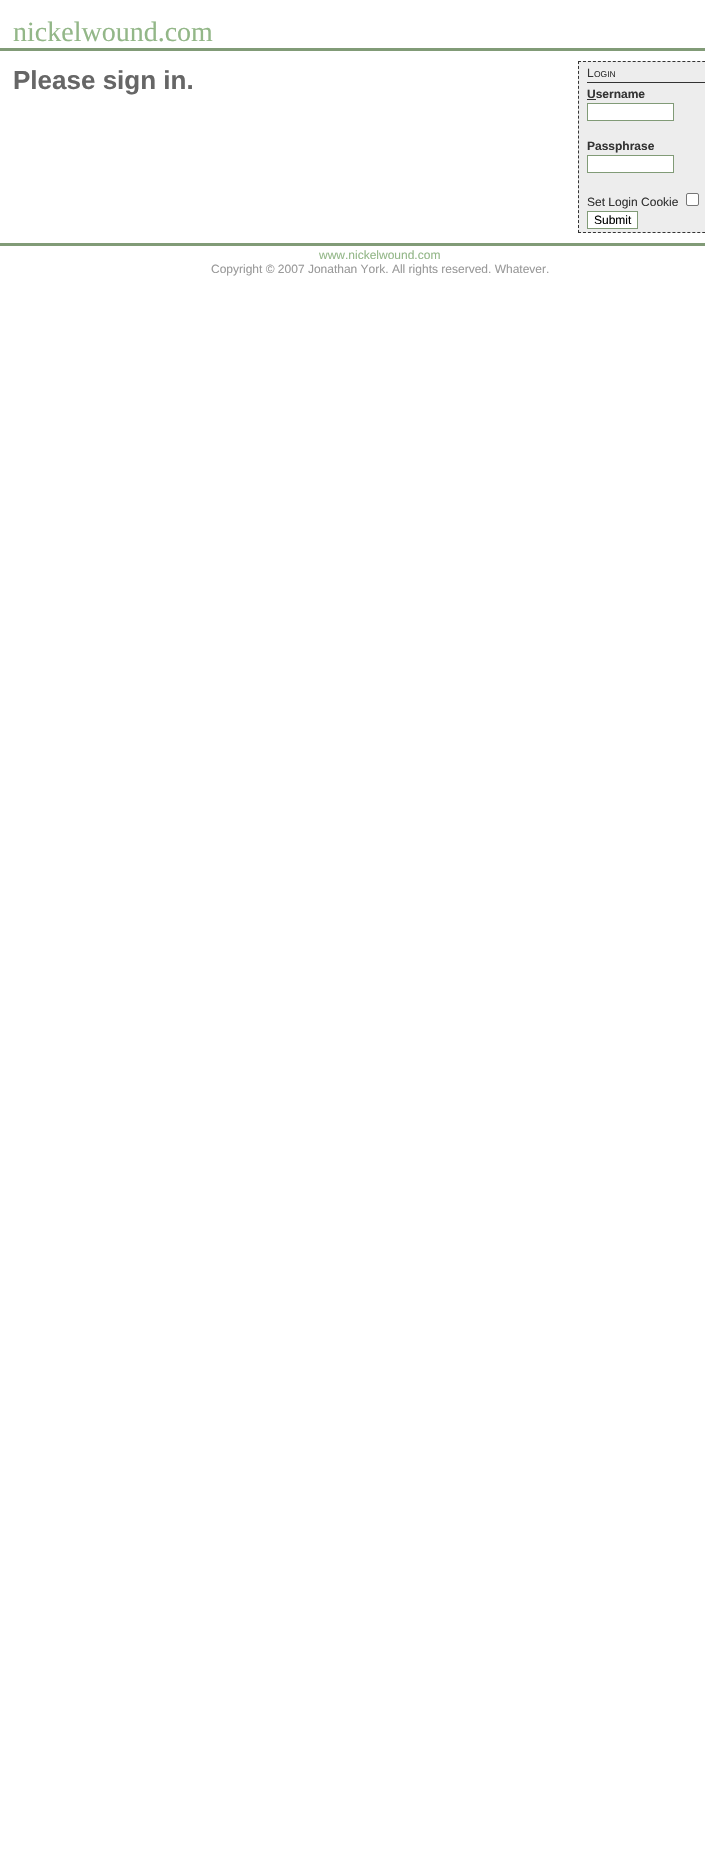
void draw(SkCanvas* c) {
SkPaint p;
p.setAntiAlias(true);
auto F=[&](const char* family, int weight, float size, bool italic = false){SkFontStyle style(weight, SkFontStyle::kNormal_Width,italic ? SkFontStyle::kItalic_Slant : SkFontStyle::kUpright_Slant);SkFont result(fontMgr->matchFamilyStyle(family, style), size);result.setSubpixel(true);return result;};
auto T=[&](const char* s, float x, float y, const SkFont& font){c->drawString(s, x, y, font, p);};
auto R=[&](float x, float y, float w, float h){c->drawRect(SkRect::MakeXYWH(x, y, w, h), p);};
auto P=[&](const char* data, bool evenOdd = false){SkPath result = *SkParsePath::FromSVGString(data);if (evenOdd) result.setFillType(SkPathFillType::kEvenOdd);return result;};
c->clear(0xffffffff);
auto f1 = F("Liberation Serif",400,28);
p.setColor(0xff93b788);
T("nickelwound.com",13,41,f1);
p.setColor(0xff819b77);
R(0,48,705,3);
auto f2 = F("Liberation Sans",700,26);
p.setColor(0xff666666);
T("Please sign in.",13,89,f2);
p.setColor(0xffededed);
R(578,61,127,172);
p.setStroke(true);
p.setStrokeWidth(1);
p.setColor(0xff333333);
p.setPathEffect(SkDashPathEffect::Make({{3,1.97f}}, 0));
c->drawPath(P("M578 61.5h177"),p);
p.setPathEffect(nullptr);
p.setPathEffect(SkDashPathEffect::Make({{3,1.97f}}, 0));
c->drawPath(P("M578 232.5h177"),p);
p.setPathEffect(nullptr);
p.setPathEffect(SkDashPathEffect::Make({{3,1.97f}}, 0));
c->drawPath(P("M578.5 61v172"),p);
p.setPathEffect(nullptr);
p.setStroke(false);
R(587,82,118,1);
auto f3 = F("Liberation Sans",400,12);
T("L",587,77,f3);
auto f4 = F("Liberation Sans",400,8.5);
T("OGIN",594,77,f4);
auto f5 = F("Liberation Sans",700,12);
T("Username",587,98,f5);
R(587,99,9,1);
p.setColor(0xffffffff);
c->drawRect(SkRect::MakeXYWH(587.5,103.5,86,17),p);
p.setStroke(true);
p.setColor(0xff819b77);
c->drawRect(SkRect::MakeXYWH(587.5,103.5,86,17),p);
p.setStroke(false);
p.setColor(0xff333333);
T("Passphrase",587,150,f5);
p.setColor(0xffffffff);
c->drawRect(SkRect::MakeXYWH(587.5,155.5,86,17),p);
p.setStroke(true);
p.setColor(0xff819b77);
c->drawRect(SkRect::MakeXYWH(587.5,155.5,86,17),p);
p.setStroke(false);
p.setColor(0xff333333);
T("Set Login Cookie",587,206,f3);
p.setColor(0xffffffff);
c->drawRoundRect(SkRect::MakeXYWH(686.5,193.5,12,12),1.5,1.5,p);
p.setStroke(true);
p.setColor(0xff767676);
c->drawRoundRect(SkRect::MakeXYWH(686.5,193.5,12,12),1.5,1.5,p);
p.setStroke(false);
p.setColor(0xffffffff);
c->drawRect(SkRect::MakeXYWH(587.5,211.5,50,17),p);
p.setStroke(true);
p.setColor(0xff819b77);
c->drawRect(SkRect::MakeXYWH(587.5,211.5,50,17),p);
p.setStroke(false);
p.setColor(0xff000000);
T("Submit",594,224,f3);
p.setColor(0xff819b77);
R(0,243,705,3);
p.setColor(0xff93b788);
T("www.nickelwound.com",319,259,f3);
p.setColor(0xff999999);
T("Copyright © 2007 Jonathan York. All rights reserved. Whatever.",211,273,f3);
}
